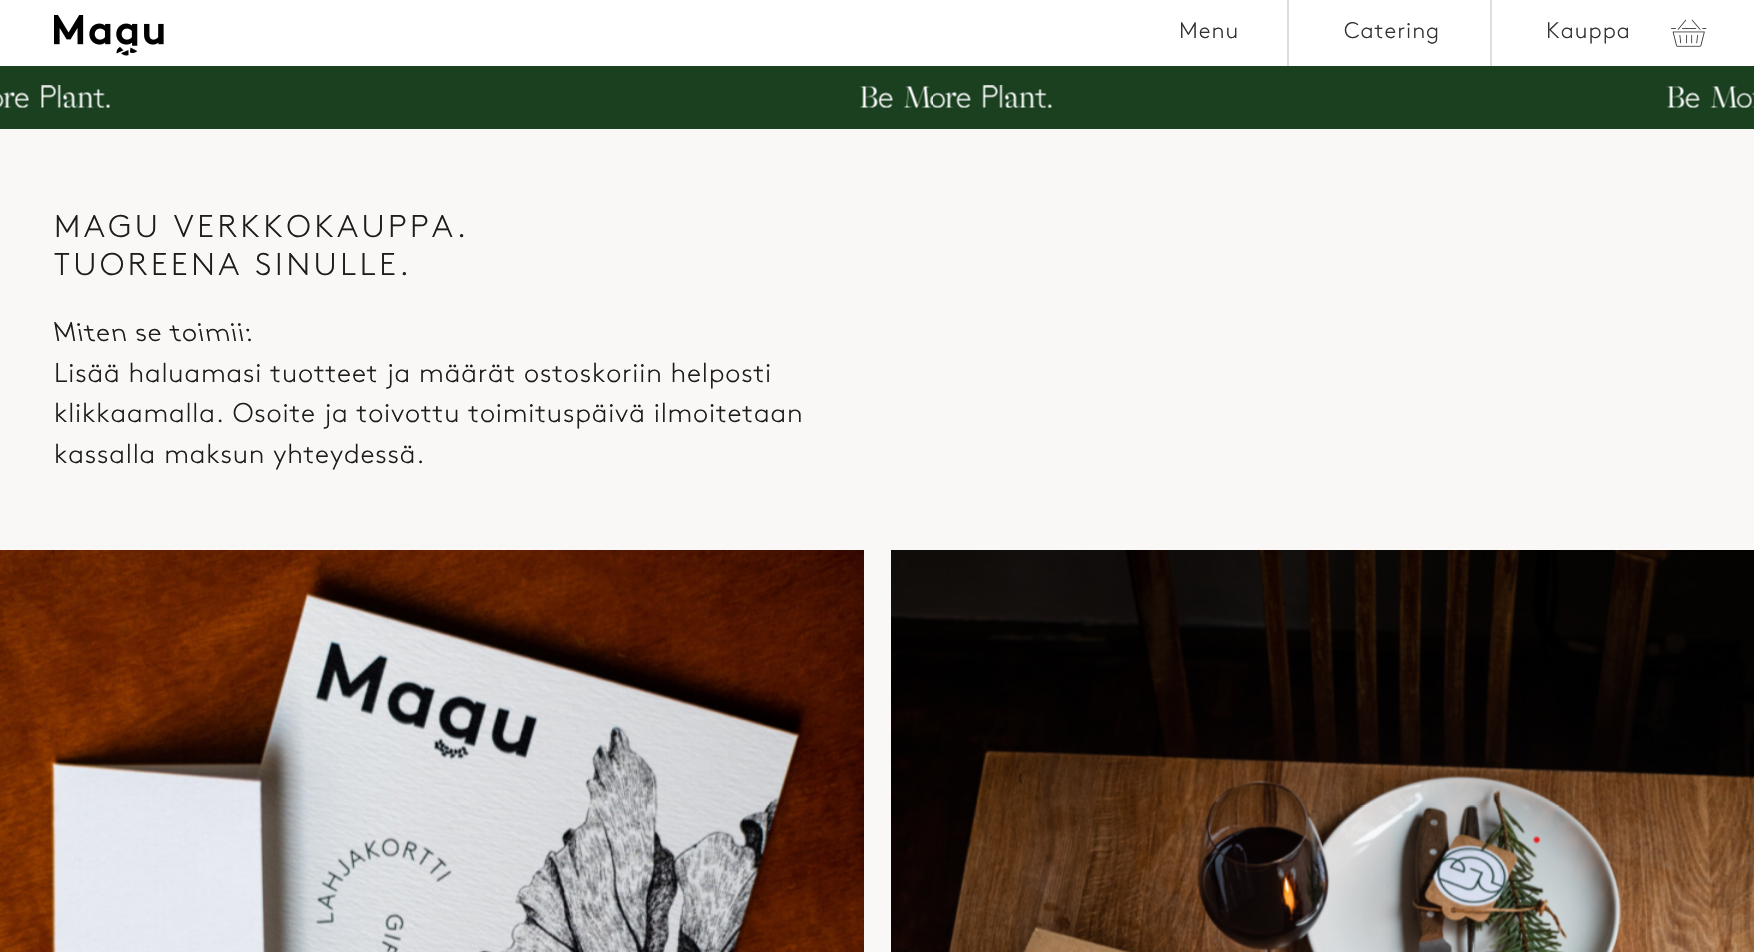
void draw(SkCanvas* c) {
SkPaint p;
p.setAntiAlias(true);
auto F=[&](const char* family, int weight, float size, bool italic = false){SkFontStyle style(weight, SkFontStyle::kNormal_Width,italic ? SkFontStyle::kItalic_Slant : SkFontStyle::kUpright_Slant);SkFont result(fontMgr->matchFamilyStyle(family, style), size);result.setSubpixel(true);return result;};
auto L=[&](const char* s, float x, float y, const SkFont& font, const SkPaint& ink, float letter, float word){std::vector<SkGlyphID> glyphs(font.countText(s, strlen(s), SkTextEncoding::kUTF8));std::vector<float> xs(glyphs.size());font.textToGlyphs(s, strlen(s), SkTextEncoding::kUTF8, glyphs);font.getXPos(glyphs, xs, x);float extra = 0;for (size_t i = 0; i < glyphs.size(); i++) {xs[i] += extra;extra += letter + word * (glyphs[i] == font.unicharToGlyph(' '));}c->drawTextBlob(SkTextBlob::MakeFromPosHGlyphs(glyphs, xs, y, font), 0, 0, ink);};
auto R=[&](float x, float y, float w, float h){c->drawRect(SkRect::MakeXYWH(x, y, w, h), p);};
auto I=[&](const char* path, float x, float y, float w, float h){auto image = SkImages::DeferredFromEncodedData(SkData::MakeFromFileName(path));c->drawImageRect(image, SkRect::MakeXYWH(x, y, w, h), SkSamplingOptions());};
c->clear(0xfffaf8f6);
p.setColor(0xffffffff);
R(0,0,1754,66);
I("1.png",54,15,110,41);
p.setColor(0xffdedede);
R(1287,0,2,66);
auto f1 = F("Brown",300,22.5);
p.setColor(0xff303133);
L("Menu",1179,38,f1,p,1,0);
p.setColor(0xffdedede);
R(1490,0,2,66);
p.setColor(0xff303133);
L("Catering",1344,38,f1,p,1,0);
L("Kauppa",1546,38,f1,p,1,0);
I("2.png",1671,19,36,28);
p.setColor(0xff1a4020);
R(0,66,1754,63);
I("3.png",0,85,1754,23);
auto f2 = F("Brown",300,31.5);
p.setColor(0xff1d1d1b);
L("MAGU VERKKOKAUPPA.",54,237,f2,p,3.75,0);
L("TUOREENA SINULLE.",54,275,f2,p,3.75,0);
auto f3 = F("Brown",300,27,true);
L("Miten se toimii:",54,341,f3,p,.8,0);
auto f4 = F("Brown",300,27);
L("Lisää haluamasi tuotteet ja määrät ostoskoriin helposti",54,382,f4,p,.8,0);
L("klikkaamalla. Osoite ja toivottu toimituspäivä ilmoitetaan",54,422,f4,p,.8,0);
L("kassalla maksun yhteydessä.",54,463,f4,p,.8,0);
I("4.png",0,550,864,402);
I("5.png",891,550,863,402);
}
